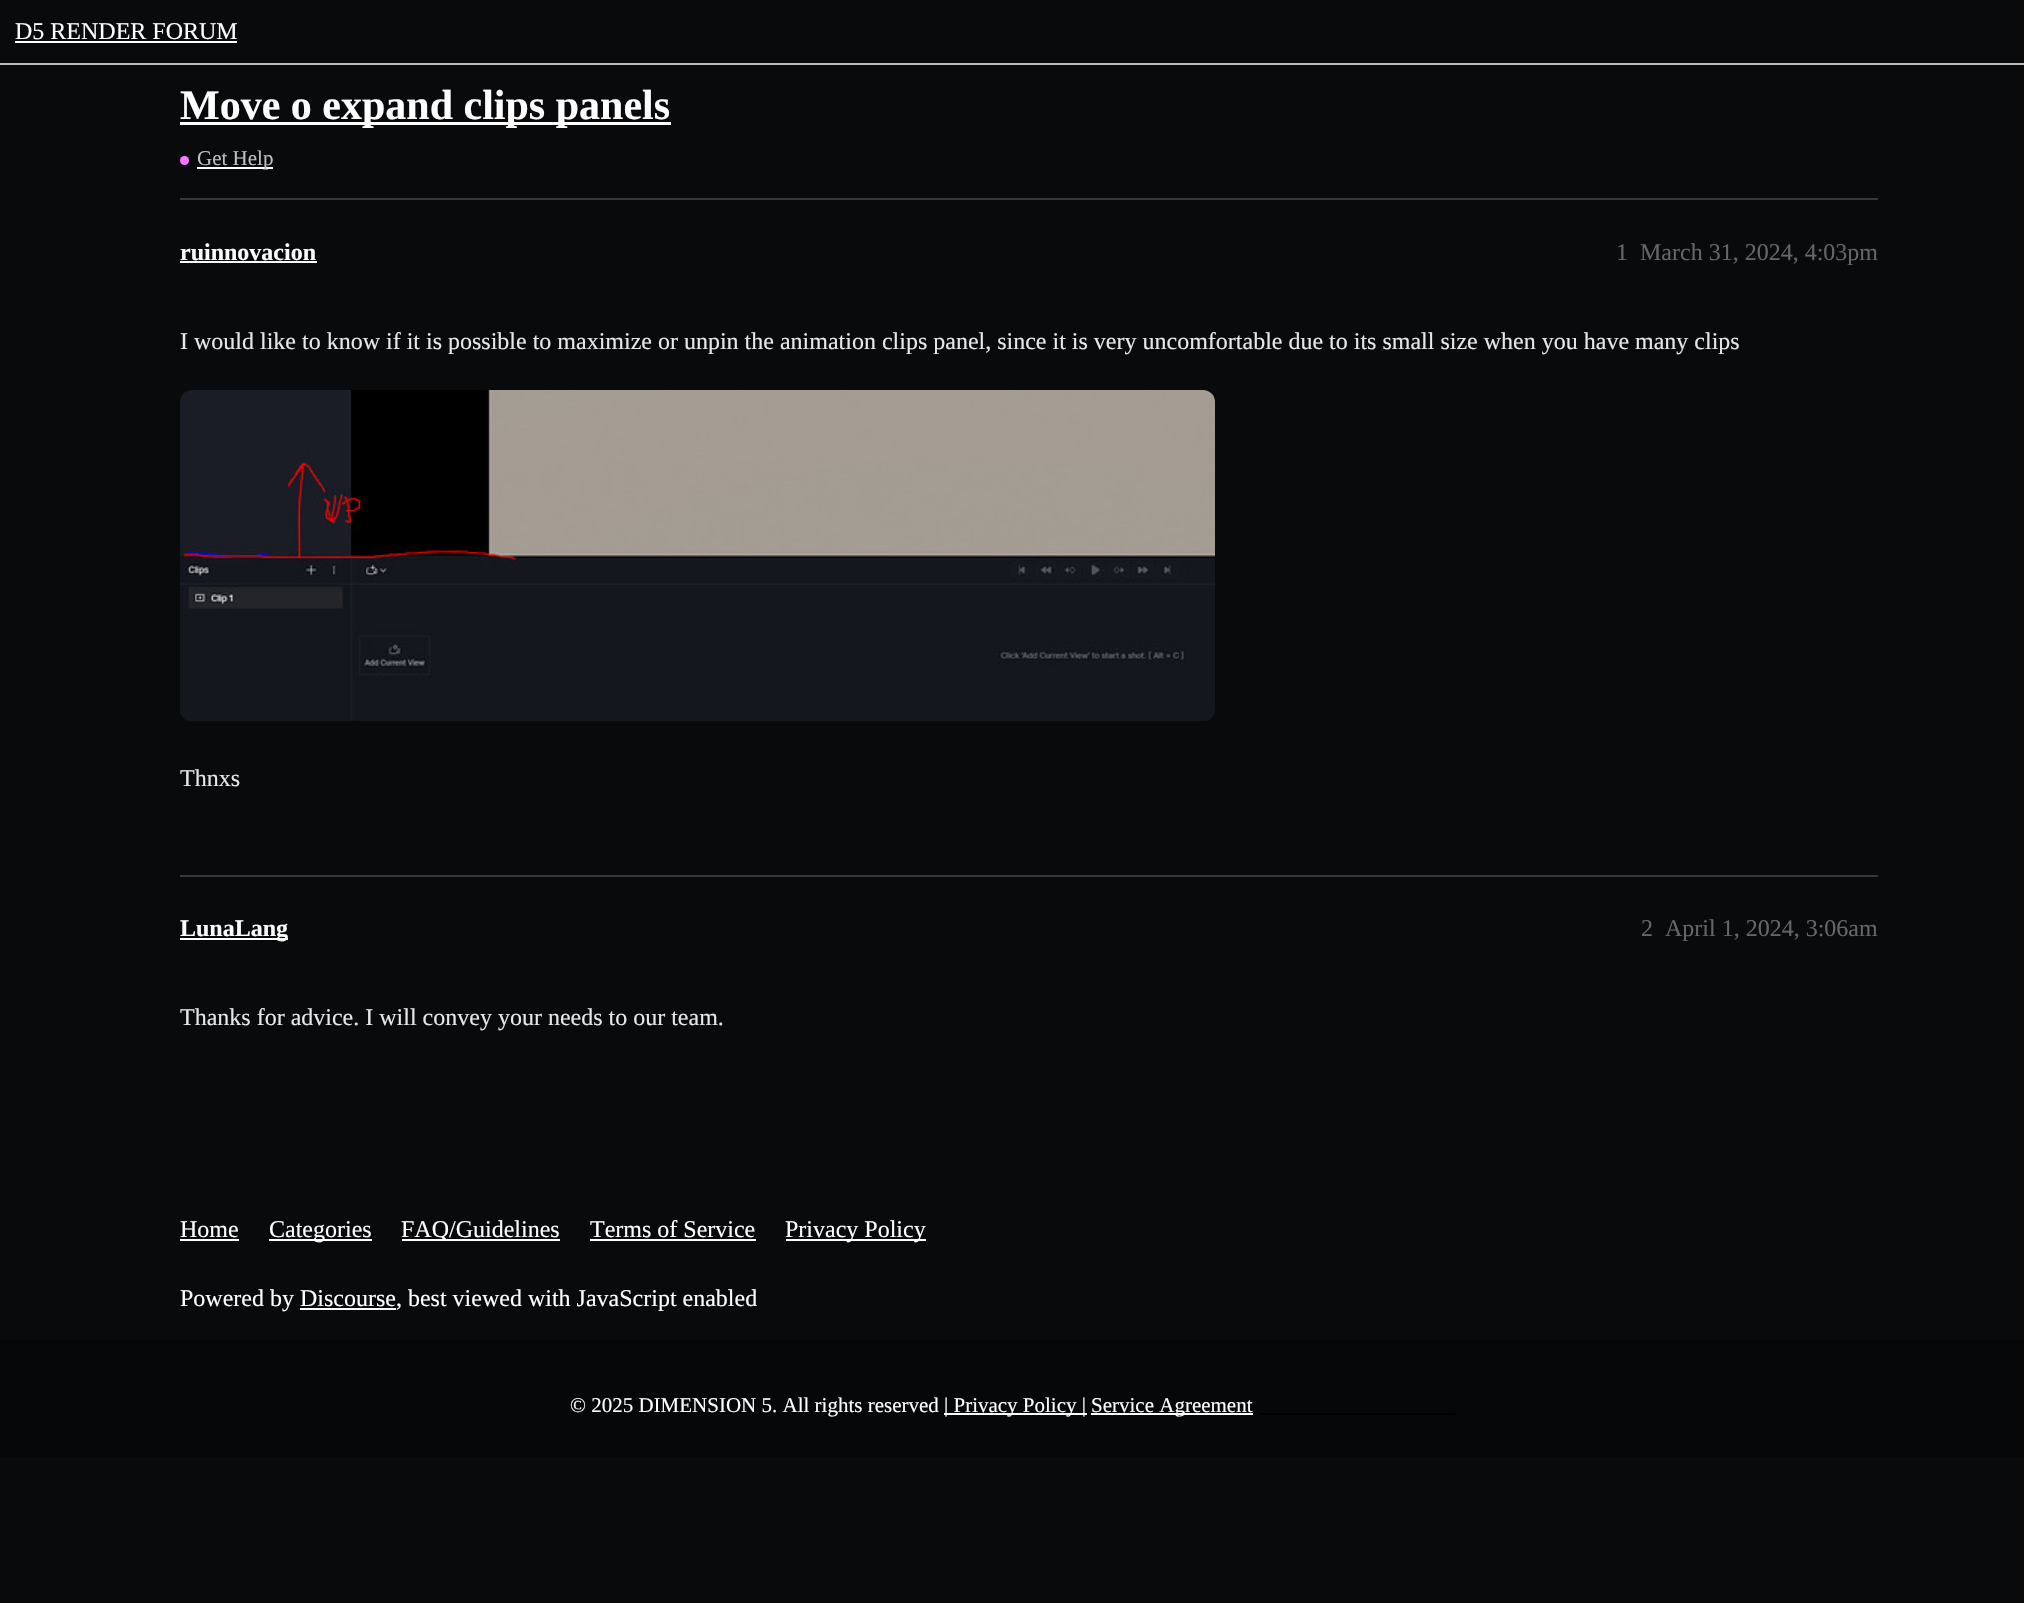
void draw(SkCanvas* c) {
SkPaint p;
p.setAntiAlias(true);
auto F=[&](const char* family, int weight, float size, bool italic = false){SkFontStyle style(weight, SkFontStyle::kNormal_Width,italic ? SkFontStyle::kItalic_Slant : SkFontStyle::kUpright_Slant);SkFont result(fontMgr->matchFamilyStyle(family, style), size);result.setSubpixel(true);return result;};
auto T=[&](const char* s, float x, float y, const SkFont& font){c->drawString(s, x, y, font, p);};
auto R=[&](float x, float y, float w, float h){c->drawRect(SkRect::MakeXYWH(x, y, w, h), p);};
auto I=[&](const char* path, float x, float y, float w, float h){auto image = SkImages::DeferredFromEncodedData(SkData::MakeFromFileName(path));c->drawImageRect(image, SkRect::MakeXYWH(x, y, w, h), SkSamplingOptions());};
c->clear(0xff080a0c);
p.setColor(0xffbdbdbd);
R(0,63,2024,2);
auto f1 = F("Liberation Serif",400,24);
p.setColor(0xffffffff);
T("D5 RENDER FORUM",15,39,f1);
R(15,41,222,2);
R(180,122,491,3);
auto f2 = F("Liberation Serif",700,42);
T("Move o expand clips panels",180,119,f2);
p.setColor(0xffff77ff);
c->drawCircle(184.5,160.5,4.5,p);
p.setColor(0xffffffff);
R(197,167,76,2);
auto f3 = F("Liberation Serif",400,21);
p.setColor(0xffbfbfbf);
T("Get Help",197,165,f3);
p.setColor(0xff383838);
R(180,198,1698,2);
auto f4 = F("Liberation Serif",700,24);
p.setColor(0xffffffff);
T("ruinnovacion",180,260,f4);
R(180,261,137,2);
p.setColor(0xff666666);
T("1",1616,260,f1);
T("March 31, 2024, 4:03pm",1640,260,f1);
p.setColor(0xffe6e7e7);
T("I would like to know if it is possible to maximize or unpin the animation clips panel, since it is very uncomfortable due to its small size when you have many clips",180,349,f1);
I("1.png",180,390,1035,332);
T("Thnxs",180,786,f1);
p.setColor(0xff383838);
R(180,875,1698,2);
p.setColor(0xffffffff);
R(180,938,108,2);
T("LunaLang",180,936,f4);
p.setColor(0xff666666);
T("2",1641,936,f1);
T("April 1, 2024, 3:06am",1665,936,f1);
p.setColor(0xffe6e7e7);
T("Thanks for advice. I will convey your needs to our team.",180,1025,f1);
p.setColor(0xffffffff);
T("Home",180,1237,f1);
R(180,1239,59,2);
R(269,1239,103,2);
T("Categories",269,1237,f1);
R(402,1239,158,2);
T("FAQ/Guidelines",401,1237,f1);
T("Terms of Service",590,1237,f1);
R(590,1239,166,2);
R(786,1239,140,2);
T("Privacy Policy",785,1237,f1);
T("Powered by Discourse, best viewed with JavaScript enabled",180,1306,f1);
R(300,1308,96,2);
p.setColor(0xff050708);
R(0,1340,2024,117);
p.setColor(0xffffffff);
T("© 2025 DIMENSION 5. All rights reserved",570,1412,f3);
R(944,1413,143,2);
T("| Privacy Policy |",944,1412,f3);
R(1091,1413,162,2);
T("Service Agreement",1091,1412,f3);
p.setColor(0xff000000);
R(1259,1413,196,2);
}
